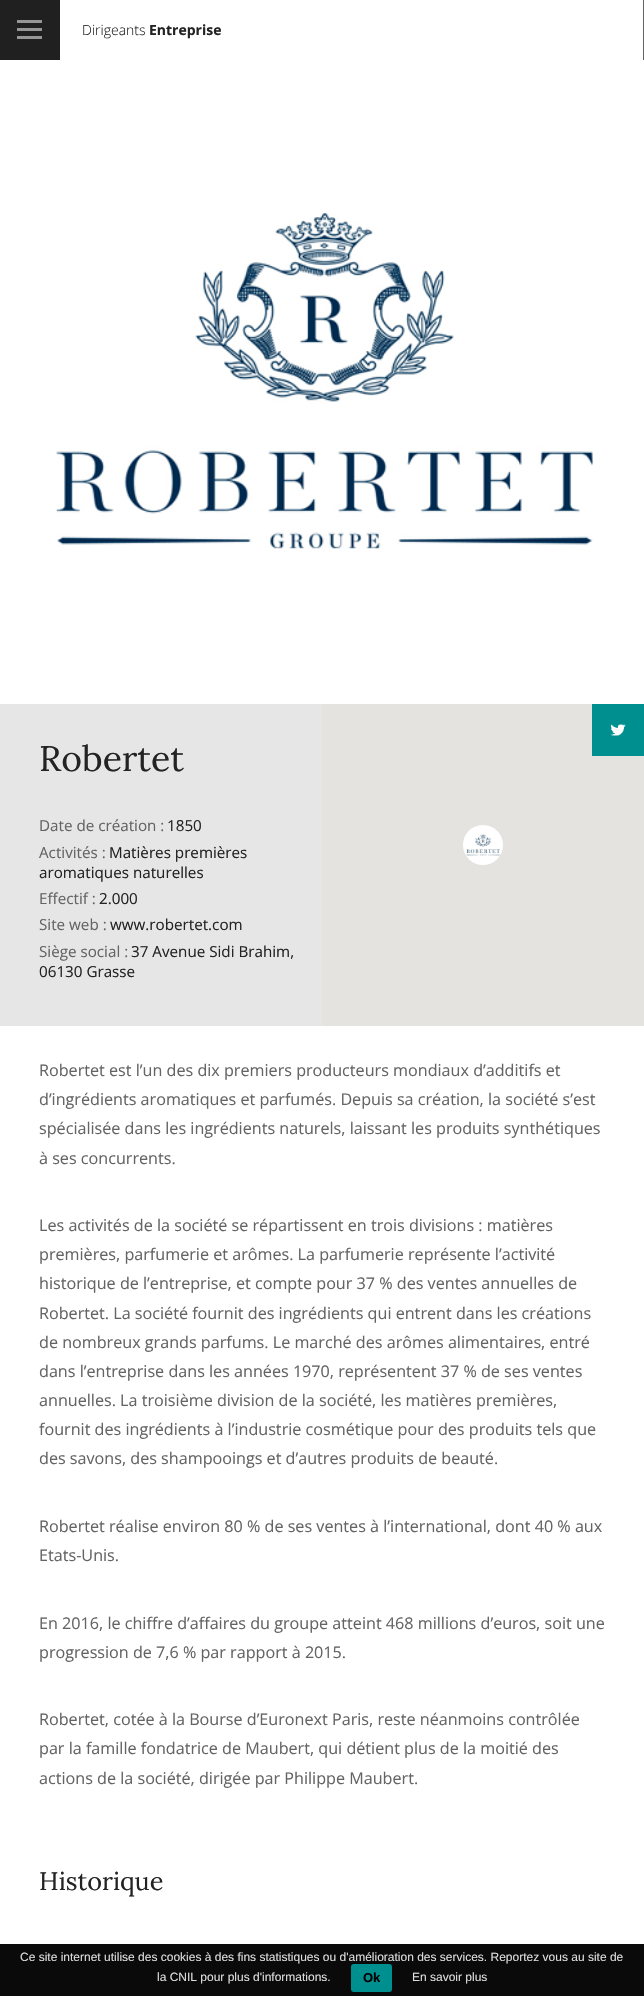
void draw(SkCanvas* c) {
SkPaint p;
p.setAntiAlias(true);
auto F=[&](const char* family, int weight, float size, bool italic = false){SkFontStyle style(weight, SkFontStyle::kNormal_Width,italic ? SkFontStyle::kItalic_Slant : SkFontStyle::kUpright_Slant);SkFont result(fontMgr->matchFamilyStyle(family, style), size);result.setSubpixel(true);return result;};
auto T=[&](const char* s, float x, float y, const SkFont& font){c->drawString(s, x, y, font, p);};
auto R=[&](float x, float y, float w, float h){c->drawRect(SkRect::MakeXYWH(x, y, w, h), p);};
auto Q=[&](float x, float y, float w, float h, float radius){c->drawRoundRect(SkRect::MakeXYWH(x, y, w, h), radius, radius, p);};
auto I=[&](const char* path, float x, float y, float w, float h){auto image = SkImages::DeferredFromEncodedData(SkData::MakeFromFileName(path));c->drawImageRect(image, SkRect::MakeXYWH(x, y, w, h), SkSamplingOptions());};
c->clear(0xffffffff);
p.setColor(0xff202020);
R(0,0,60,60);
p.setColor(0xff969696);
R(17,20,25,3);
R(17,28,25,3);
R(17,36,25,3);
p.setColor(0xff646464);
R(643,0,1,60);
auto f1 = F("Open Sans",300,14);
p.setColor(0xff232323);
T("Dirigeants",82,35,f1);
auto f2 = F("Open Sans",700,14);
T("Entreprise",149,35,f2);
p.setColor(0xffe6e6e6);
R(0,704,322,322);
I("1.png",0,60,644,644);
p.setColor(0xffe5e3df);
R(322,704,322,322);
I("2.png",463,825,40,40);
auto f3 = F("Lora",400,35.5);
p.setColor(0xff232323);
T("Robertet",39,771,f3);
p.setColor(0xff008f8f);
R(592,704,52,52);
I("3.png",610,724,16,12);
auto f4 = F("Open Sans",400,15.2);
p.setColor(0xff646464);
T("Date de création :",39,831,f4);
p.setColor(0xff232323);
T("1850",167,831,f4);
p.setColor(0xff646464);
T("Activités :",39,858,f4);
p.setColor(0xff232323);
T("Matières premières",109,858,f4);
T("aromatiques naturelles",39,878,f4);
p.setColor(0xff646464);
T("Effectif :",39,904,f4);
p.setColor(0xff232323);
T("2.000",99,904,f4);
p.setColor(0xff646464);
T("Site web :",39,930,f4);
p.setColor(0xff232323);
T("www.robertet.com",110,930,f4);
p.setColor(0xff646464);
T("Siège social :",39,957,f4);
p.setColor(0xff232323);
T("37 Avenue Sidi Brahim,",131,957,f4);
T("06130 Grasse",39,977,f4);
auto f5 = F("Open Sans",400,16.15);
p.setColor(0xff646464);
T("Robertet est l’un des dix premiers producteurs mondiaux d’additifs et",39,1076,f5);
T("d’ingrédients aromatiques et parfumés. Depuis sa création, la société s’est",39,1105,f5);
T("spécialisée dans les ingrédients naturels, laissant les produits synthétiques",39,1134,f5);
T("à ses concurrents.",39,1164,f5);
T("Les activités de la société se répartissent en trois divisions : matières",39,1231,f5);
T("premières, parfumerie et arômes. La parfumerie représente l’activité",39,1260,f5);
T("historique de l’entreprise, et compte pour 37 % des ventes annuelles de",39,1289,f5);
T("Robertet. La société fournit des ingrédients qui entrent dans les créations",39,1319,f5);
T("de nombreux grands parfums. Le marché des arômes alimentaires, entré",39,1348,f5);
T("dans l’entreprise dans les années 1970, représentent 37 % de ses ventes",39,1377,f5);
T("annuelles. La troisième division de la société, les matières premières,",39,1406,f5);
T("fournit des ingrédients à l’industrie cosmétique pour des produits tels que",39,1435,f5);
T("des savons, des shampooings et d’autres produits de beauté.",39,1464,f5);
T("Robertet réalise environ 80 % de ses ventes à l’international, dont 40 % aux",39,1532,f5);
T("Etats-Unis.",39,1561,f5);
T("En 2016, le chiffre d’affaires du groupe atteint 468 millions d’euros, soit une",39,1629,f5);
T("progression de 7,6 % par rapport à 2015.",39,1658,f5);
T("Robertet, cotée à la Bourse d’Euronext Paris, reste néanmoins contrôlée",39,1725,f5);
T("par la famille fondatrice de Maubert, qui détient plus de la moitié des",39,1754,f5);
T("actions de la société, dirigée par Philippe Maubert.",39,1784,f5);
auto f6 = F("Lora",400,25.25);
p.setColor(0xff232323);
T("Historique",39,1890,f6);
p.setColor(0xff0a0a0a);
R(0,1944,644,52);
auto f7 = F("Liberation Sans",400,12);
p.setColor(0xffdddddd);
T("Ce site internet utilise des cookies à des fins statistiques ou d'amélioration des services. Reportez vous au site de",20,1961,f7);
T("la CNIL pour plus d'informations.",157,1981,f7);
p.setColor(0xff008f8f);
Q(351,1964,41,28,3);
auto f8 = F("Liberation Sans",700,13);
p.setColor(0xff000000);
T("Ok",363,1982,f8);
p.setColor(0xffdddddd);
T("En savoir plus",412,1981,f7);
}
